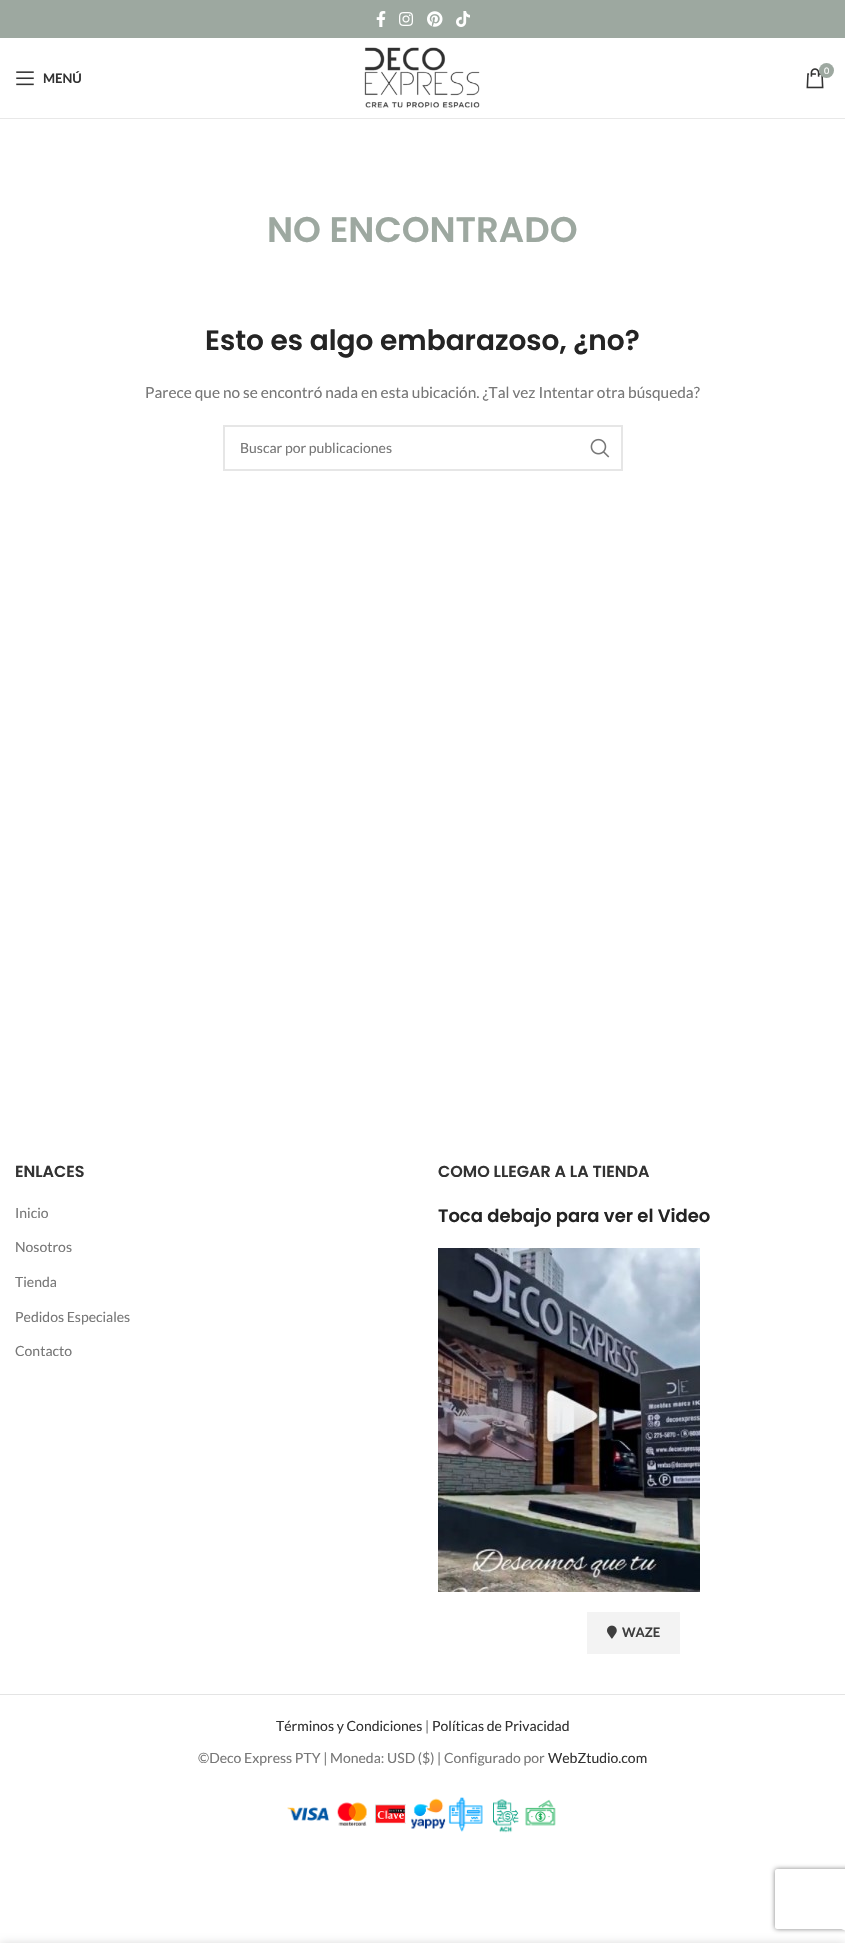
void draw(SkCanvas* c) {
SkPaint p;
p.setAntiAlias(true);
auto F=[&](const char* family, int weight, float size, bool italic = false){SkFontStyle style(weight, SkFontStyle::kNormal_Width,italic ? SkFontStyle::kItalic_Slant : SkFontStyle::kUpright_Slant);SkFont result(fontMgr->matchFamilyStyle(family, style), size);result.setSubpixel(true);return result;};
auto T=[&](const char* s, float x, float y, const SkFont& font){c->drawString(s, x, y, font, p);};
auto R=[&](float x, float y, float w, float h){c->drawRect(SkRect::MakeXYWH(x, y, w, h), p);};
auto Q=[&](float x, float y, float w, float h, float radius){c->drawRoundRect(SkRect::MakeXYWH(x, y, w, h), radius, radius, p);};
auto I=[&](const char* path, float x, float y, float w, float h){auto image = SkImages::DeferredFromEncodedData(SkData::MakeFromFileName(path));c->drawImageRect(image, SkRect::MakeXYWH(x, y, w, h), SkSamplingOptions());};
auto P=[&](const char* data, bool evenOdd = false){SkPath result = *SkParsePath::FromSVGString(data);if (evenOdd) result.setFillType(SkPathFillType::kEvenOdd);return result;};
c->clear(0xffffffff);
p.setColor(0xff9da8a0);
R(0,0,845,38);
I("1.png",376,11,10,16);
I("2.png",399,12,14,14);
I("3.png",427,11,16,16);
I("4.png",456,11,14,16);
p.setColor(0xffe8e8e8);
R(0,118,845,1);
I("5.png",16,71,18,15);
auto f1 = F("Lato",700,13);
p.setColor(0xff333333);
T("MENÚ",43,83,f1);
I("6.png",364,47,116,61);
I("7.png",806,68,18,21);
p.setColor(0xff9da8a0);
c->drawCircle(826.5,70.5,7.5,p);
auto f2 = F("Lato",400,9);
p.setColor(0xffffffff);
T("0",824,74,f2);
auto f3 = F("Poppins",600,35.5);
p.setColor(0xff9da8a0);
T("NO ENCONTRADO",267,242,f3);
auto f4 = F("Poppins",600,28);
p.setColor(0xff242424);
T("Esto es algo embarazoso, ¿no?",205,350,f4);
auto f5 = F("Lato",400,15.4);
p.setColor(0xff777777);
T("Parece que no se encontró nada en esta ubicación. ¿Tal vez Intentar otra búsqueda?",145,398,f5);
p.setStroke(true);
p.setStrokeWidth(2);
p.setColor(0xffe6e6e6);
c->drawRect(SkRect::MakeXYWH(224,426,398,44),p);
auto f6 = F("Lato",400,14);
p.setStroke(false);
p.setColor(0xff777777);
T("Buscar por publicaciones",240,453,f6);
I("8.png",590,438,20,20);
auto f7 = F("Poppins",600,16);
p.setColor(0xff333333);
T("ENLACES",15,1177,f7);
p.setColor(0xff777777);
T("Inicio",15,1218,f6);
T("Nosotros",15,1252,f6);
T("Tienda",15,1287,f6);
T("Pedidos Especiales",15,1322,f6);
T("Contacto",15,1356,f6);
p.setColor(0xff333333);
T("COMO LLEGAR A LA TIENDA",438,1177,f7);
auto f8 = F("Poppins",600,18);
p.setColor(0xff242424);
T("Toca debajo para ver el Video",438,1222,f8);
I("9.png",438,1248,262,344);
p.setColor(0xfff3f3f3);
R(587,1612,93,42);
I("10.png",607,1625,10,14);
p.setColor(0xff3e3e3e);
T("WAZE",622,1637,f1);
p.setColor(0xffe4e4e4);
R(0,1694,845,1);
p.setColor(0xff333333);
T("Términos y Condiciones",276,1731,f6);
p.setColor(0xff777777);
T("|",425,1731,f6);
p.setColor(0xff333333);
T("Políticas de Privacidad",432,1731,f6);
p.setColor(0xff777777);
T("©Deco Express PTY | Moneda: USD ($) | Configurado por",198,1763,f6);
p.setColor(0xff333333);
T("WebZtudio.com",548,1763,f6);
I("11.png",287,1797,269,36);
c->save();
c->clipPath(P("M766 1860h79v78h-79zm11 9h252c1 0 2 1 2 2v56c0 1-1 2-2 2h-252c-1 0-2-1-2-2v-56c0-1 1-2 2-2z",true),true);
p.setColor(0xff808080);
p.setMaskFilter(SkMaskFilter::MakeBlur(kNormal_SkBlurStyle, 2.5));
c->drawRoundRect(SkRect::MakeXYWH(775,1869,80,60),2,2,p);
p.setMaskFilter(nullptr);
c->restore();
p.setColor(0xffffffff);
Q(833,1891,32,40,20);
p.setColor(0x24000000);
p.setMaskFilter(SkMaskFilter::MakeBlur(kNormal_SkBlurStyle, 4.5));
c->drawRect(SkRect::MakeXYWH(0,1943,845,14),p);
p.setMaskFilter(nullptr);
}
